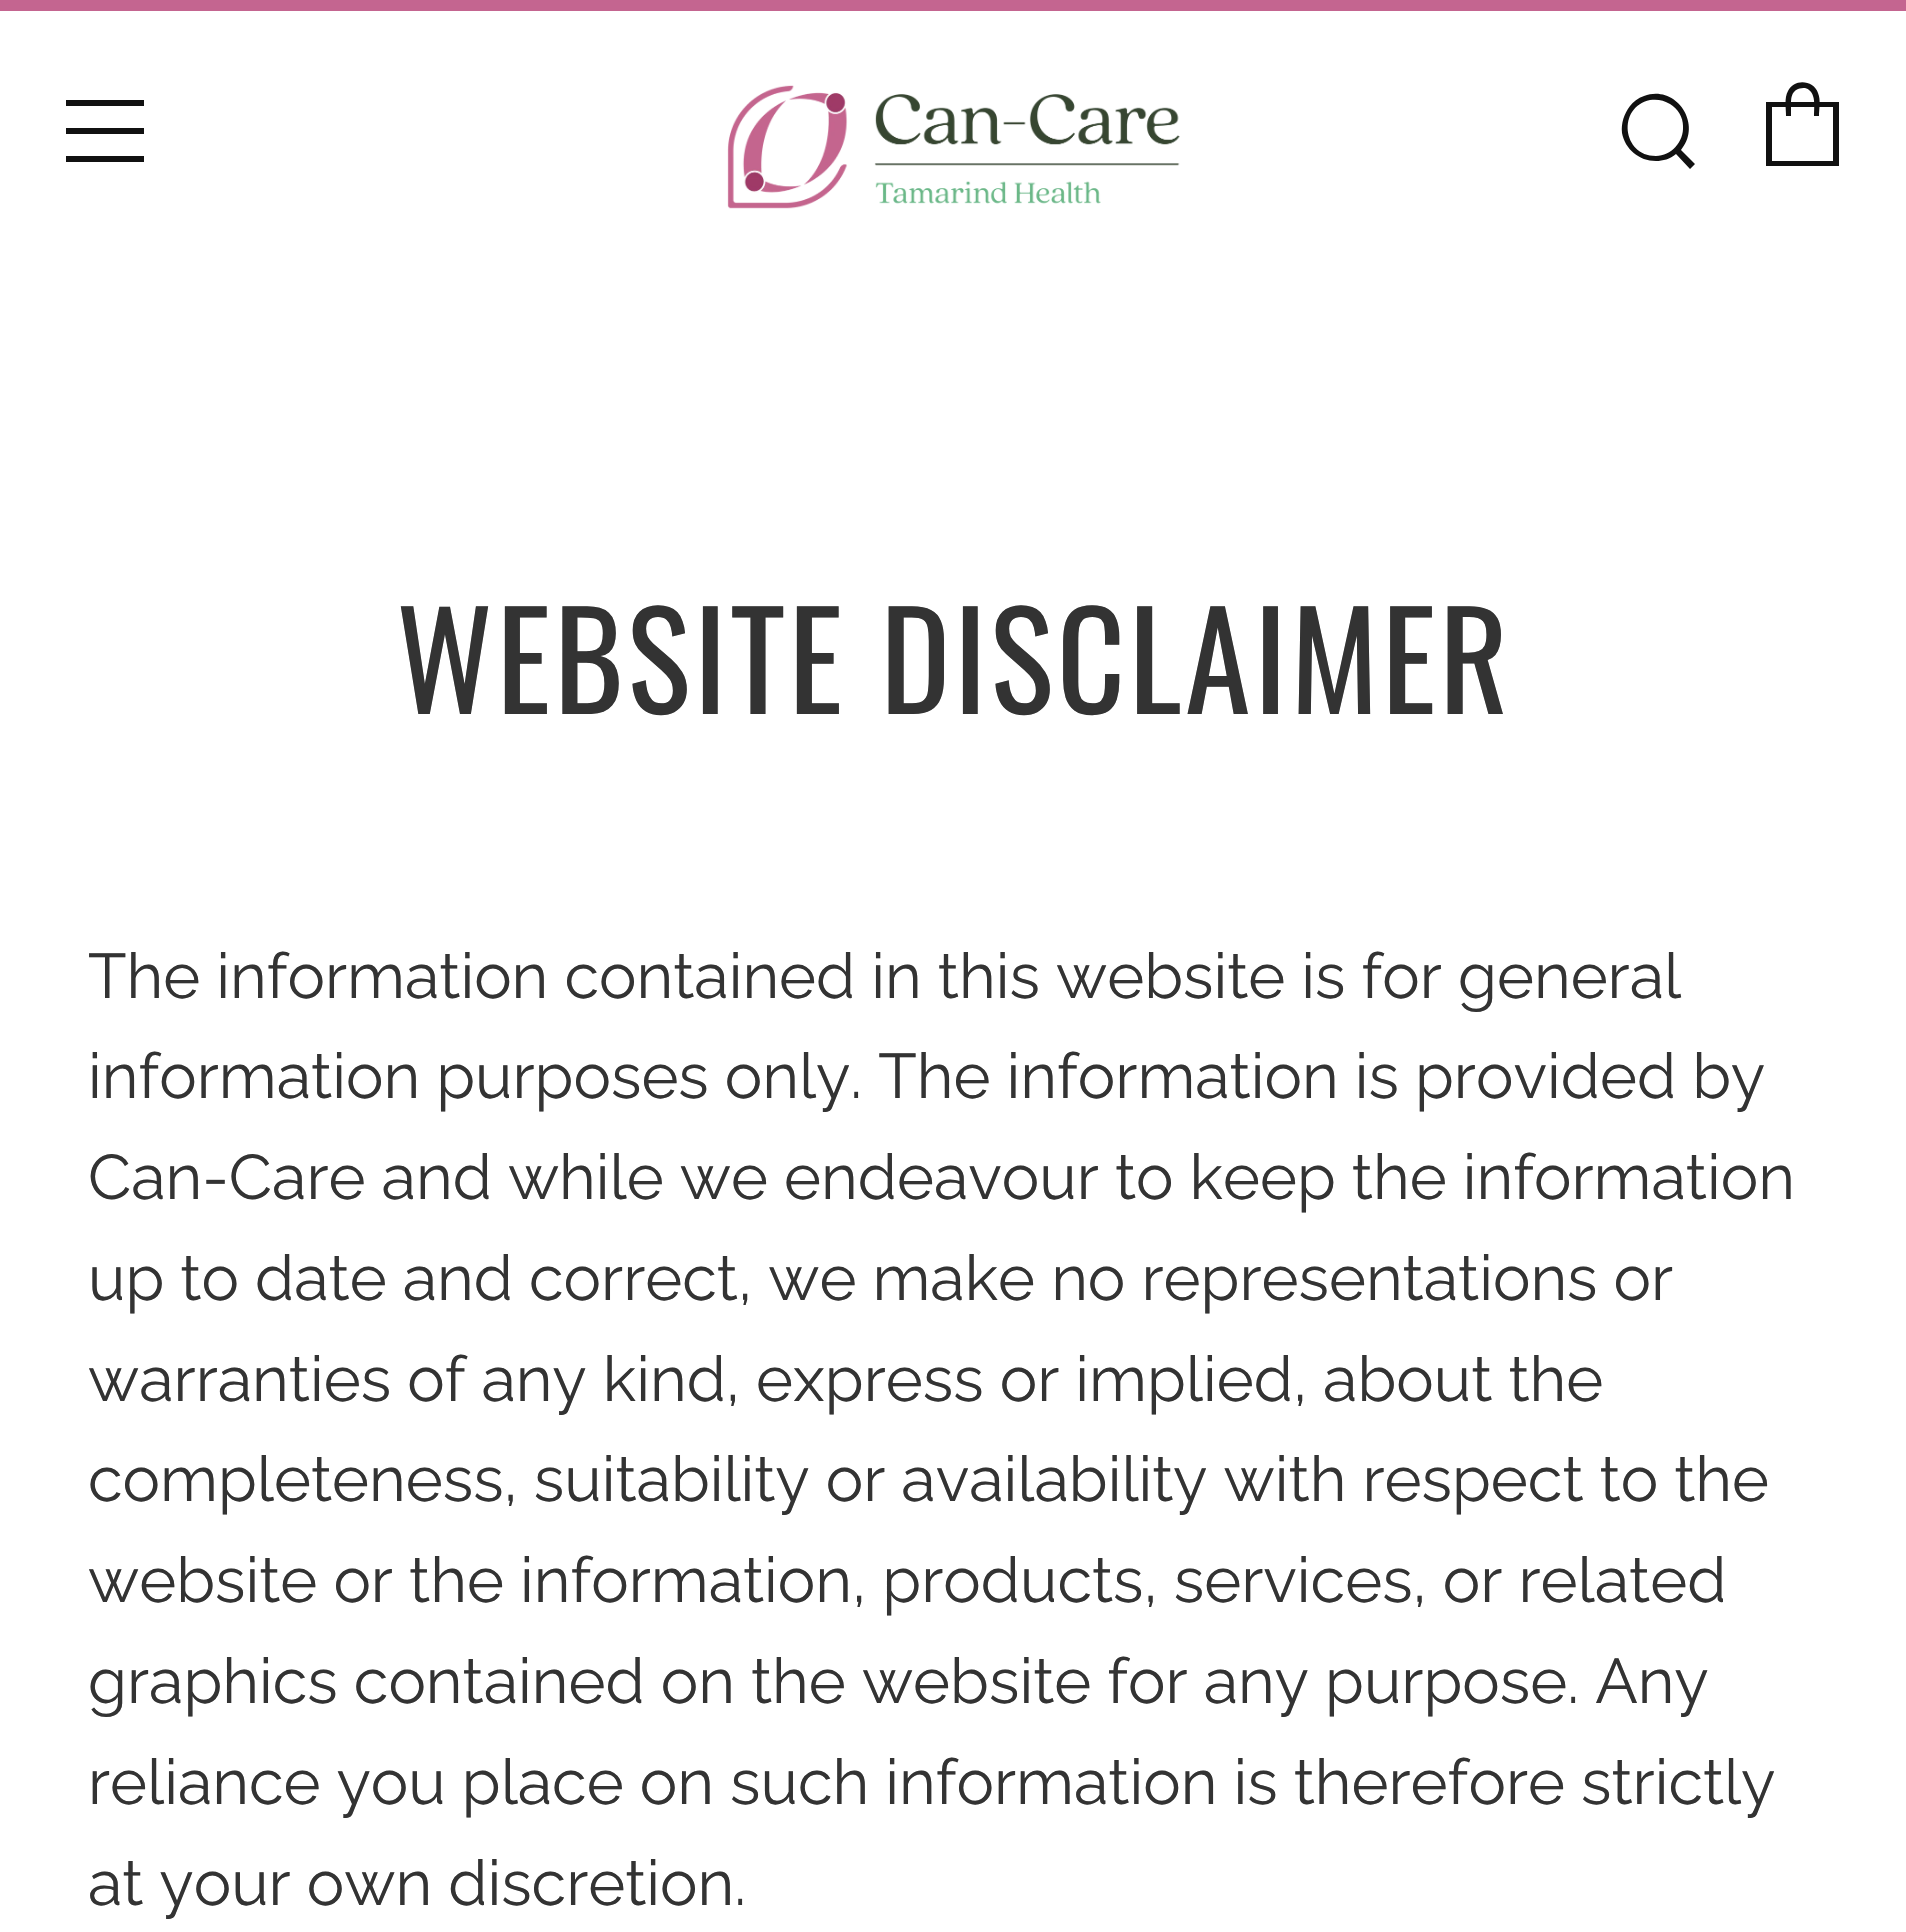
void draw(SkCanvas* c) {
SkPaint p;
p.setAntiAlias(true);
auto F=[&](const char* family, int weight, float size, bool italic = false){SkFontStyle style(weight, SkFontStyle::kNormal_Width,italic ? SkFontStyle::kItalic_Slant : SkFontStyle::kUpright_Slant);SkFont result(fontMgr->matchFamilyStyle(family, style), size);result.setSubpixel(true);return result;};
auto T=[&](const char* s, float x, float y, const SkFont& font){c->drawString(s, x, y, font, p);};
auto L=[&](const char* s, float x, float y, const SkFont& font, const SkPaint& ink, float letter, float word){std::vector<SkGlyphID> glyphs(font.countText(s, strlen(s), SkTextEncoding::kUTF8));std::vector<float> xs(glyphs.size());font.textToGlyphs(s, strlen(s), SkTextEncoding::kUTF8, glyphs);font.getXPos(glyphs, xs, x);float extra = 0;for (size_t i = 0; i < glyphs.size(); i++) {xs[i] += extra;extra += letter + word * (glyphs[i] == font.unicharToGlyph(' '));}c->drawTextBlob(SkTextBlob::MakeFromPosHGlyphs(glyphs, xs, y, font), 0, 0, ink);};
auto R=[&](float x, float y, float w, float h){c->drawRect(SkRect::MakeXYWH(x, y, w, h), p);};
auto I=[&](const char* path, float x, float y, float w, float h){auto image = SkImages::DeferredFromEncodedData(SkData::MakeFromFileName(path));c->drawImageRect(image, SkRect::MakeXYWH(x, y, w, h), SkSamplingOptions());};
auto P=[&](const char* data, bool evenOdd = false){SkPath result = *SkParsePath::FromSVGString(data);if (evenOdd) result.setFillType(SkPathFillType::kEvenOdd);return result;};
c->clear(0xffffffff);
p.setColor(0xffc46590);
R(0,0,1906,11);
p.setColor(0xff111111);
c->drawPath(P("M66 106h78v-6h-78zm0 56h78v-6h-78zm0-28h78v-6h-78z"),p);
I("1.png",727,85,453,124);
c->drawPath(P("M1656 156c15 0 28-14 27-30c0-9-5-17-13-22c-6-4-13-5-20-4c-33 7-28 56 6 56zm0 5c-17 0-31-12-34-28c-1-10 2-19 8-27c3-4 8-8 14-10c32-12 59 28 37 54l14 14l-5 5l-14-15c-6 5-13 7-20 7z"),p);
c->drawPath(P("M1772 161h61v-54h-61zm-6-59h73v64h-73zm25 14h-5c0-8-2-18 2-25c6-13 26-11 30 2c3 7 1 16 1 23h-5c0-5 1-15-1-20c-1-4-4-7-8-8c-2 0-5 0-7 1c-7 3-7 10-7 16z"),p);
auto f1 = F("Oswald",400,133);
p.setColor(0xff333333);
L("WEBSITE DISCLAIMER",396,714,f1,p,3.5,0);
auto f2 = F("Raleway",400,63);
T("The information contained in this website is for general",88,998,f2);
T("information purposes only. The information is provided by",88,1098,f2);
T("Can-Care and while we endeavour to keep the information",88,1199,f2);
T("up to date and correct, we make no representations or",88,1300,f2);
T("warranties of any kind, express or implied, about the",88,1401,f2);
T("completeness, suitability or availability with respect to the",88,1501,f2);
T("website or the information, products, services, or related",88,1602,f2);
T("graphics contained on the website for any purpose. Any",88,1703,f2);
T("reliance you place on such information is therefore strictly",88,1804,f2);
T("at your own discretion.",88,1905,f2);
}
